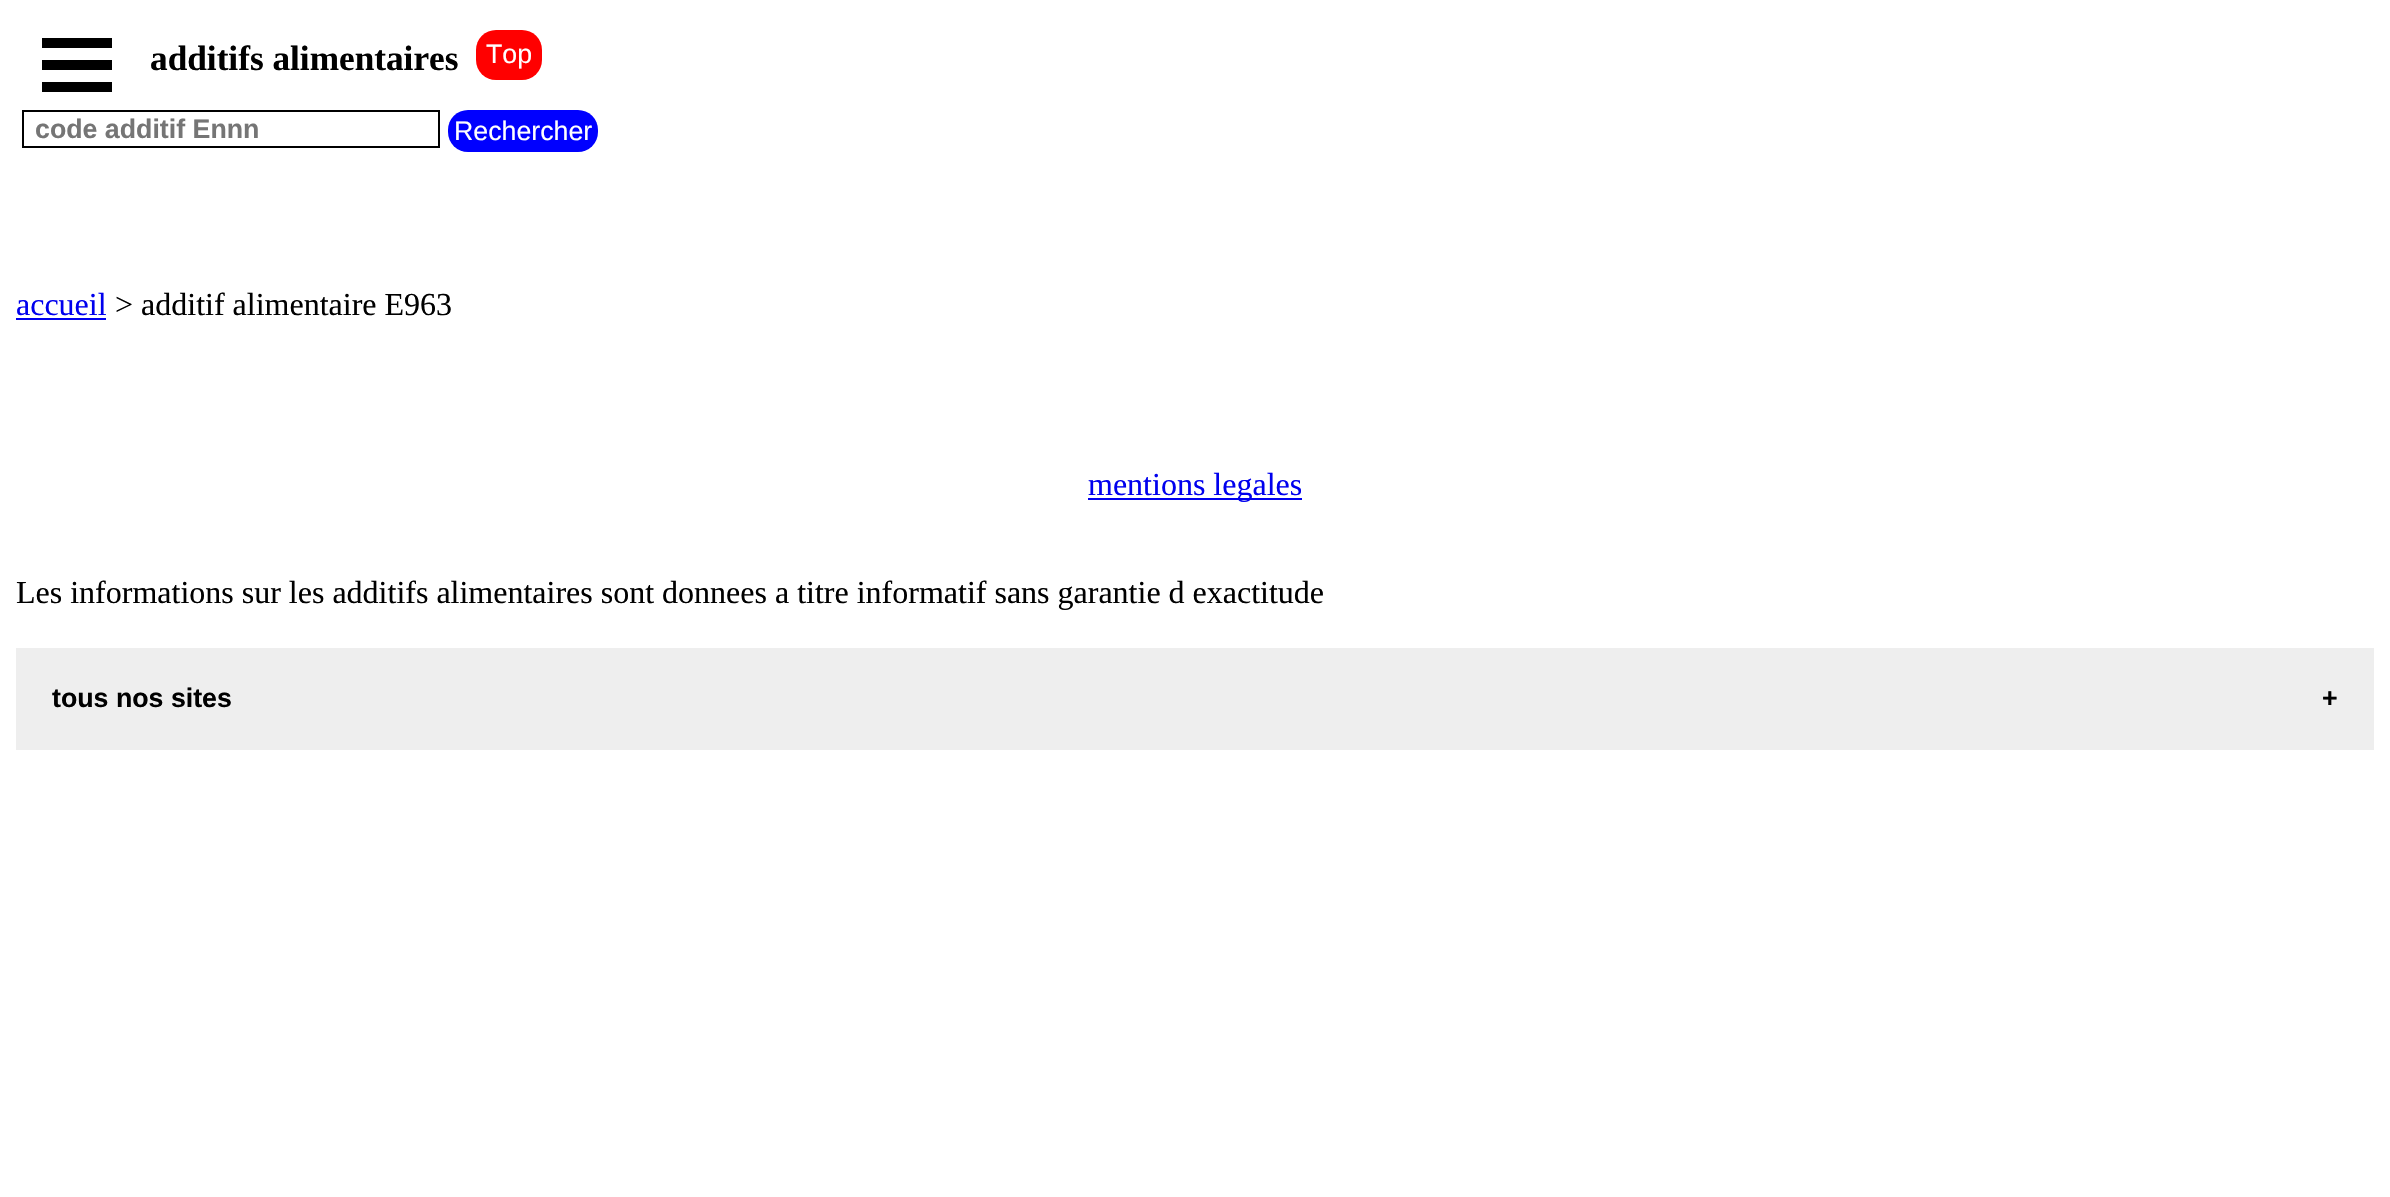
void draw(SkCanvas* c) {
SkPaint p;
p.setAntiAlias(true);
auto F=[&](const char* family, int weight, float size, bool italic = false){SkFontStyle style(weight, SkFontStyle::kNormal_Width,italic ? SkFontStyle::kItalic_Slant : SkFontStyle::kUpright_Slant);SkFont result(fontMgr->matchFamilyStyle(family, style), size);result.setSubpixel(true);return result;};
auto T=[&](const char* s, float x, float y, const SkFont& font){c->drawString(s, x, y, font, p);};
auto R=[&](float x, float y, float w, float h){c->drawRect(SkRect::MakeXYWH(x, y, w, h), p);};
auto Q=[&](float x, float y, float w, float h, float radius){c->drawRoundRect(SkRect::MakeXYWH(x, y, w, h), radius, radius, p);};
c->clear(0xffffffff);
p.setColor(0xff000000);
R(42,38,70,10);
R(42,60,70,10);
R(42,82,70,10);
auto f1 = F("Liberation Serif",700,35.25);
T("additifs alimentaires",150,70,f1);
p.setColor(0xffff0000);
Q(476,30,66,50,20);
auto f2 = F("Liberation Sans",400,26.75);
p.setColor(0xffffffff);
T("Top",486,63,f2);
p.setStroke(true);
p.setStrokeWidth(2);
p.setColor(0xff000000);
c->drawRect(SkRect::MakeXYWH(23,111,416,36),p);
auto f3 = F("Liberation Sans",700,26.75);
p.setStroke(false);
p.setColor(0xff757575);
T("code additif Ennn",35,138,f3);
p.setColor(0xff0000ff);
Q(448,110,150,42,20);
p.setColor(0xffffffff);
T("Rechercher",454,140,f2);
auto f4 = F("Liberation Serif",400,32);
p.setColor(0xff0000ee);
T("accueil",16,315,f4);
R(16,318,90,2);
p.setColor(0xff000000);
T("> additif alimentaire E963",115,315,f4);
p.setColor(0xff0000ee);
R(1088,498,214,2);
T("mentions legales",1088,495,f4);
p.setColor(0xff000000);
T("Les informations sur les additifs alimentaires sont donnees a titre informatif sans garantie d exactitude",16,603,f4);
p.setColor(0xffeeeeee);
R(16,648,2358,102);
p.setColor(0xff000000);
T("tous nos sites",52,707,f3);
T("+",2322,707,f3);
}
